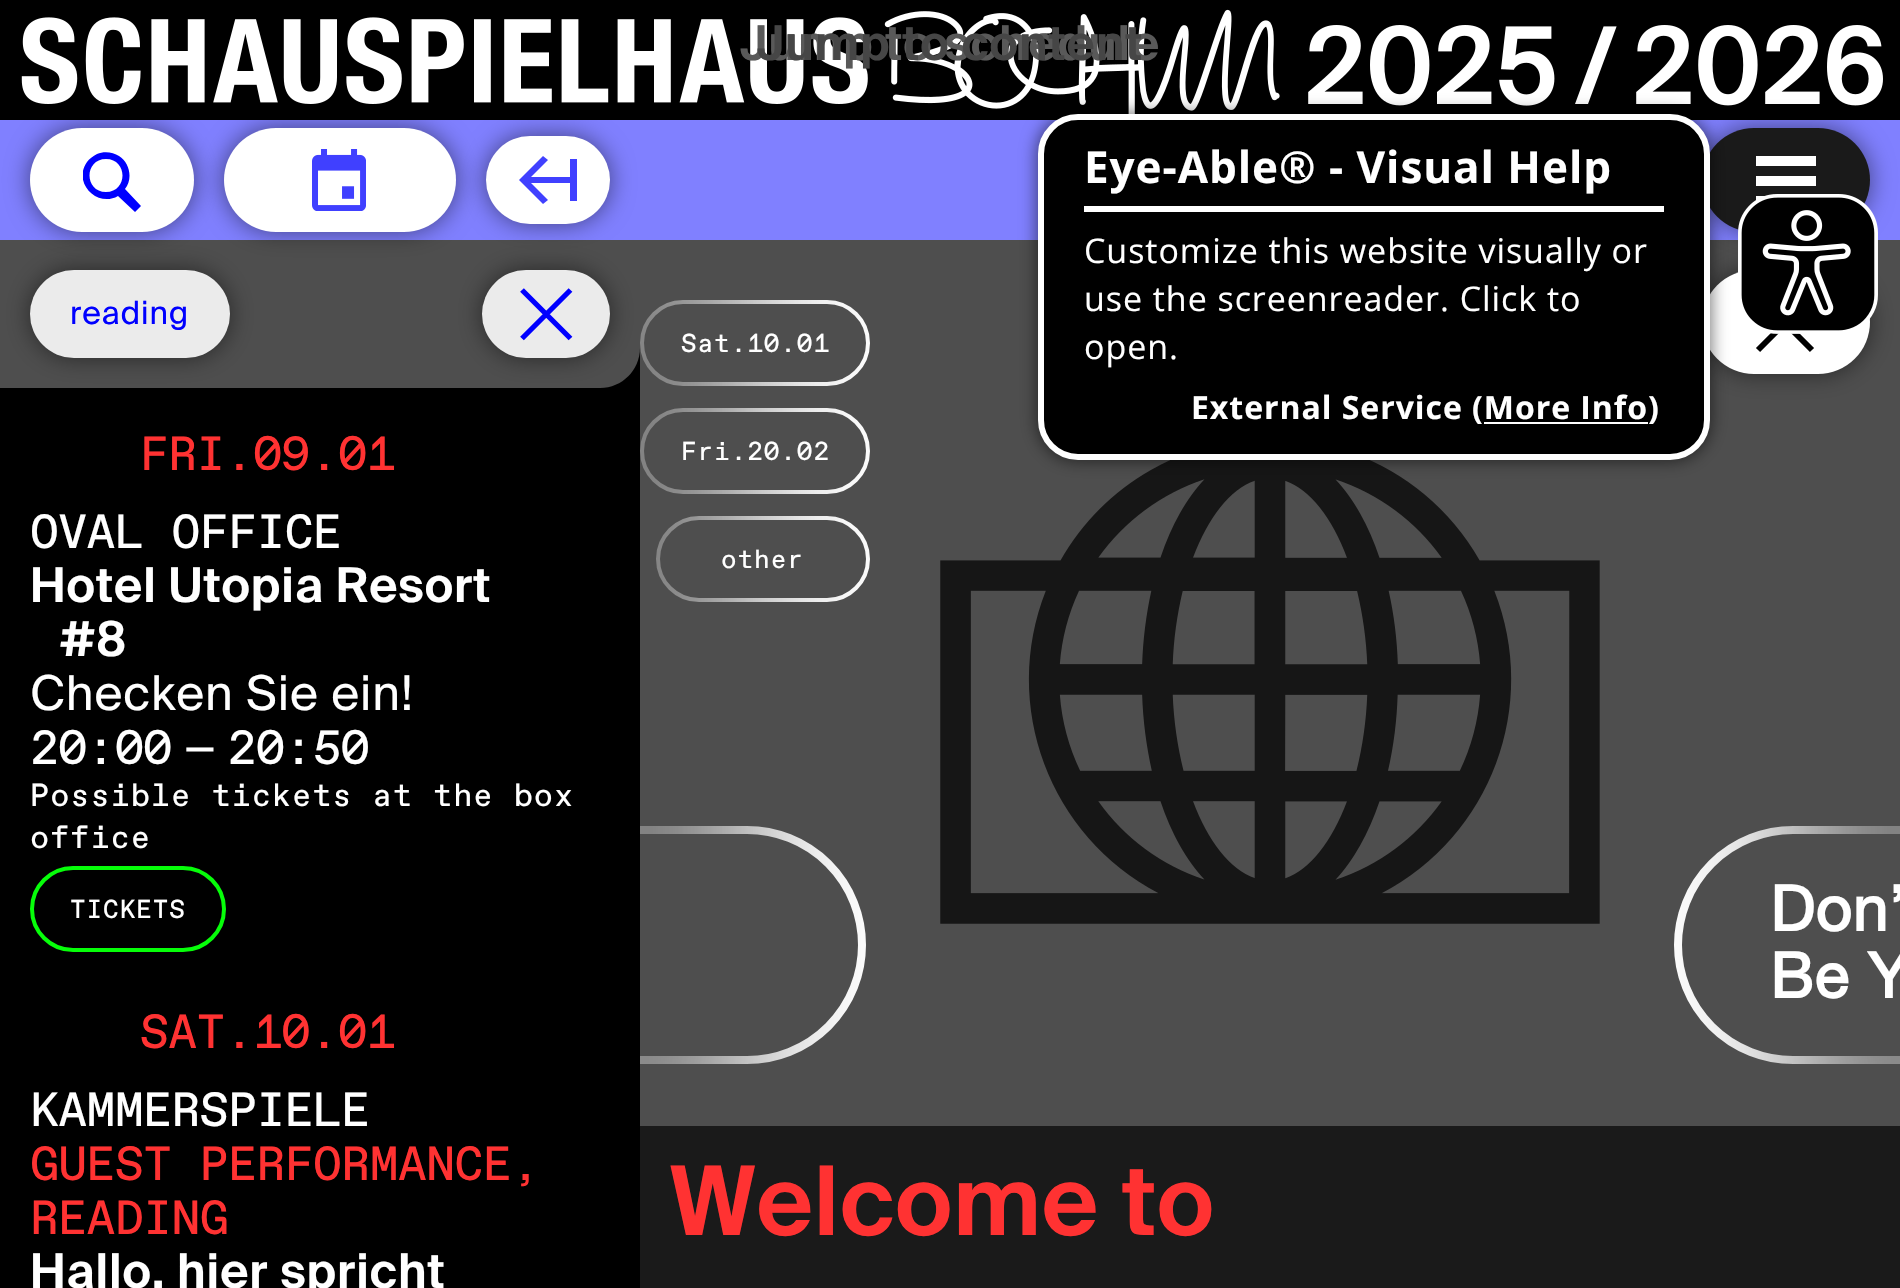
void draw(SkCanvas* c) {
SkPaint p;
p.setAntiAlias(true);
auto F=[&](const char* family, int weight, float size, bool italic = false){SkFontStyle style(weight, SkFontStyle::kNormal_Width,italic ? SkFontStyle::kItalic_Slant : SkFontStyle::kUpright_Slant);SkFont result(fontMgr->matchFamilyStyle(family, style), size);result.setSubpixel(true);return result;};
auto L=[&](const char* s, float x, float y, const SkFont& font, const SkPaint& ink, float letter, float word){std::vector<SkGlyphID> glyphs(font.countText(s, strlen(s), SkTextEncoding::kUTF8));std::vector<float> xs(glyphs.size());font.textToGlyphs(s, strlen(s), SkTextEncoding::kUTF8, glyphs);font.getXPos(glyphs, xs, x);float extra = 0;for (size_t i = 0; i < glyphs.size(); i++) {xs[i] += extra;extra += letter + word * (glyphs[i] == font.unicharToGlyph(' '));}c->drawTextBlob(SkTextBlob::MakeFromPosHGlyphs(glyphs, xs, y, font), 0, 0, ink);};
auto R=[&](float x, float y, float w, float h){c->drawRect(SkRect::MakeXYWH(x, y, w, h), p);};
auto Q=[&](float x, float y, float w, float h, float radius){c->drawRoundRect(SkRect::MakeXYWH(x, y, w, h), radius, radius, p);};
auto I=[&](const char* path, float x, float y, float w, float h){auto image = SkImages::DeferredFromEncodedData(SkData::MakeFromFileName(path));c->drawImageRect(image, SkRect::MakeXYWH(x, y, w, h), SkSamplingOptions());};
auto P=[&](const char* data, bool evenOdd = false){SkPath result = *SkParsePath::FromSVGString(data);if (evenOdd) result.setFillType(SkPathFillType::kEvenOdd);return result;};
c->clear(0xff1a1a1a);
p.setColor(0xff4e4e4e);
R(640,240,1260,886);
p.setStroke(true);
p.setStrokeWidth(4);
p.setColor(0xffffffff);
c->drawRoundRect(SkRect::MakeXYWH(642,302,226,82),41,41,p);
c->drawRoundRect(SkRect::MakeXYWH(642,410,226,82),41,41,p);
c->drawRoundRect(SkRect::MakeXYWH(658,518,210,82),41,41,p);
p.setStrokeWidth(8);
c->drawRoundRect(SkRect::MakeXYWH(276,830,586,230),115,115,p);
I("4.png",940,460,660,464);
c->save();
c->clipRect(SkRect::MakeXYWH(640,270,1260,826));
p.setStroke(false);
p.setColor(0xff4e4e4e);
p.setMaskFilter(SkMaskFilter::MakeBlur(kNormal_SkBlurStyle, 80));
c->drawRect(SkRect::MakeXYWH(558,190,162,986),p);
p.setMaskFilter(nullptr);
c->restore();
p.setColor(0xff000000);
R(0,348,640,940);
p.setColor(0xff4e4e4e);
c->drawPath(P("M0 240h640v108c0 22-18 40-40 40h-600z"),p);
p.setColor(0x80000000);
p.setMaskFilter(SkMaskFilter::MakeBlur(kNormal_SkBlurStyle, 12));
c->drawRoundRect(SkRect::MakeXYWH(30,270,200,88),44,44,p);
p.setMaskFilter(nullptr);
p.setMaskFilter(SkMaskFilter::MakeBlur(kNormal_SkBlurStyle, 12));
c->drawRoundRect(SkRect::MakeXYWH(482,270,128,88),44,44,p);
p.setMaskFilter(nullptr);
p.setColor(0xff8080ff);
R(0,120,640,120);
p.setColor(0x80000000);
p.setMaskFilter(SkMaskFilter::MakeBlur(kNormal_SkBlurStyle, 12));
c->drawRoundRect(SkRect::MakeXYWH(224,128,232,104),52,52,p);
p.setMaskFilter(nullptr);
p.setColor(0xffffffff);
Q(224,128,232,104,52);
p.setColor(0x80000000);
p.setMaskFilter(SkMaskFilter::MakeBlur(kNormal_SkBlurStyle, 12));
c->drawRoundRect(SkRect::MakeXYWH(30,128,164,104),52,52,p);
p.setMaskFilter(nullptr);
p.setMaskFilter(SkMaskFilter::MakeBlur(kNormal_SkBlurStyle, 12));
c->drawRoundRect(SkRect::MakeXYWH(486,136,124,88),44,44,p);
p.setMaskFilter(nullptr);
p.setStroke(true);
p.setColor(0xffffffff);
c->drawRoundRect(SkRect::MakeXYWH(1678,830,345,230),115,115,p);
c->save();
c->clipRect(SkRect::MakeXYWH(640,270,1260,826));
p.setStroke(false);
p.setColor(0xff4e4e4e);
p.setMaskFilter(SkMaskFilter::MakeBlur(kNormal_SkBlurStyle, 80));
c->drawRect(SkRect::MakeXYWH(1820,190,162,986),p);
p.setMaskFilter(nullptr);
c->restore();
p.setColor(0xff000000);
R(0,0,1900,120);
I("1.png",21,9,1862,105);
auto f1 = F("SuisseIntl",600,48);
p.setColor(0xff595959);
L("Jump to schedule",740,60,f1,p,.95,0);
p.setColor(0xff464646);
L("Jump to content",757,60,f1,p,.95,0);
p.setColor(0xff8080ff);
R(640,120,1260,120);
p.setColor(0x80000000);
p.setMaskFilter(SkMaskFilter::MakeBlur(kNormal_SkBlurStyle, 12));
c->drawRoundRect(SkRect::MakeXYWH(1702,128,168,104),52,52,p);
p.setMaskFilter(nullptr);
p.setColor(0xff1a1a1a);
Q(1702,128,168,104,52);
p.setColor(0x80000000);
p.setMaskFilter(SkMaskFilter::MakeBlur(kNormal_SkBlurStyle, 12));
c->drawRoundRect(SkRect::MakeXYWH(1702,270,168,104),52,52,p);
p.setMaskFilter(nullptr);
p.setColor(0xffffffff);
Q(1702,270,168,104,52);
p.setColor(0x80000000);
p.setMaskFilter(SkMaskFilter::MakeBlur(kNormal_SkBlurStyle, 8));
c->drawRoundRect(SkRect::MakeXYWH(1036,112,676,350),42,42,p);
p.setMaskFilter(nullptr);
p.setColor(0xff000000);
c->drawRoundRect(SkRect::MakeXYWH(1041,117,666,340),37,37,p);
p.setStroke(true);
p.setStrokeWidth(6);
p.setColor(0xffffffff);
c->drawRoundRect(SkRect::MakeXYWH(1041,117,666,340),37,37,p);
p.setStroke(false);
R(1084,206,580,6);
auto f2 = F("Open Sans",700,44);
L("Eye-Able® - Visual Help",1084,183,f2,p,.95,0);
auto f3 = F("Open Sans",400,34);
L("Customize this website visually or",1084,263,f3,p,.95,0);
L("use the screenreader. Click to",1084,311,f3,p,.95,0);
L("open.",1084,359,f3,p,.95,0);
auto f4 = F("Open Sans",700,32);
L("External Service (More Info)",1191,419,f4,p,.95,0);
R(1484,422,164,2);
R(1756,196,9,5);
p.setStroke(true);
p.setStrokeWidth(5.9);
p.setColor(0xff000000);
c->drawPath(P("M1758 296l54 54m0-54l-54 54"),p);
I("2.png",1738,194,140,140);
p.setStroke(false);
p.setColor(0xffffffff);
R(1756,156,60,10);
R(1756,176,60,10);
Q(30,128,164,104,52);
c->save();
c->clipRect(SkRect::MakeXYWH(83,152,58,60));
p.setColor(0xff0000ff);
c->drawPath(P("M106 159c22 0 22 33 0 33c-22 0-22-33 0-33m19 30c8-10 5-26-6-33c-6-4-15-5-22-2c-4 2-8 5-10 8c-15 21 11 46 31 34l17 16l6-6z"),p);
c->restore();
I("3.png",312,149,54,62);
p.setColor(0xffffffff);
Q(486,136,124,88,44);
p.setColor(0xff4040ff);
c->drawPath(P("M543 156l-24 24l24 24l5-4l-17-17h39v18h7v-42h-7v18h-39l17-17z"),p);
p.setColor(0xffebebeb);
Q(30,270,200,88,44);
auto f5 = F("SuisseIntl",400,32);
p.setColor(0xff0000ff);
L("reading",70,324,f5,p,.95,0);
p.setColor(0xffebebeb);
Q(482,270,128,88,44);
p.setStroke(true);
p.setStrokeWidth(5.3);
p.setColor(0xff0000ff);
c->drawPath(P("M522 290l48.5 48.5m0-48.5l-48.5 48.5"),p);
auto f6 = F("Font",400,48);
p.setStroke(false);
p.setColor(0xffff3232);
L("FRI.09.01",140,470,f6,p,-.5,0);
p.setColor(0xffffffff);
L("OVAL OFFICE",30,548,f6,p,-.5,0);
L("Hotel Utopia Resort",30,602,f1,p,.95,0);
L("#8",60,656,f1,p,.95,0);
auto f7 = F("SuisseIntl",400,48);
L("Checken Sie ein!",30,710,f7,p,.95,0);
L("20:00 — 20:50",30,764,f6,p,-.5,0);
auto f8 = F("Font",400,32);
L("Possible tickets at the box",30,806,f8,p,.95,0);
L("office",30,848,f8,p,.95,0);
p.setStroke(true);
p.setStrokeWidth(4);
p.setColor(0xff06fe09);
c->drawRoundRect(SkRect::MakeXYWH(32,868,192,82),41,41,p);
auto f9 = F("Font",400,26);
p.setStroke(false);
p.setColor(0xffffffff);
L("TICKETS",70,918,f9,p,.95,0);
p.setColor(0xffff3232);
L("SAT.10.01",140,1048,f6,p,-.5,0);
p.setColor(0xffffffff);
L("KAMMERSPIELE",30,1126,f6,p,-.5,0);
p.setColor(0xffff3232);
L("GUEST PERFORMANCE,",30,1180,f6,p,-.5,0);
L("READING",30,1234,f6,p,-.5,0);
p.setColor(0xffffffff);
L("Hallo, hier spricht",30,1288,f1,p,.95,0);
L("Sat.10.01",681,352,f9,p,.95,0);
L("Fri.20.02",681,460,f9,p,.95,0);
L("other",721,568,f9,p,.95,0);
auto f10 = F("Helvetica Neue",700,63);
L("Don’",1770,931,f10,p,1,0);
L("Be Y",1770,998,f10,p,1,0);
auto f11 = F("SuisseIntl",600,96);
p.setColor(0xffff3232);
L("Welcome to",670,1235,f11,p,.95,0);
}
